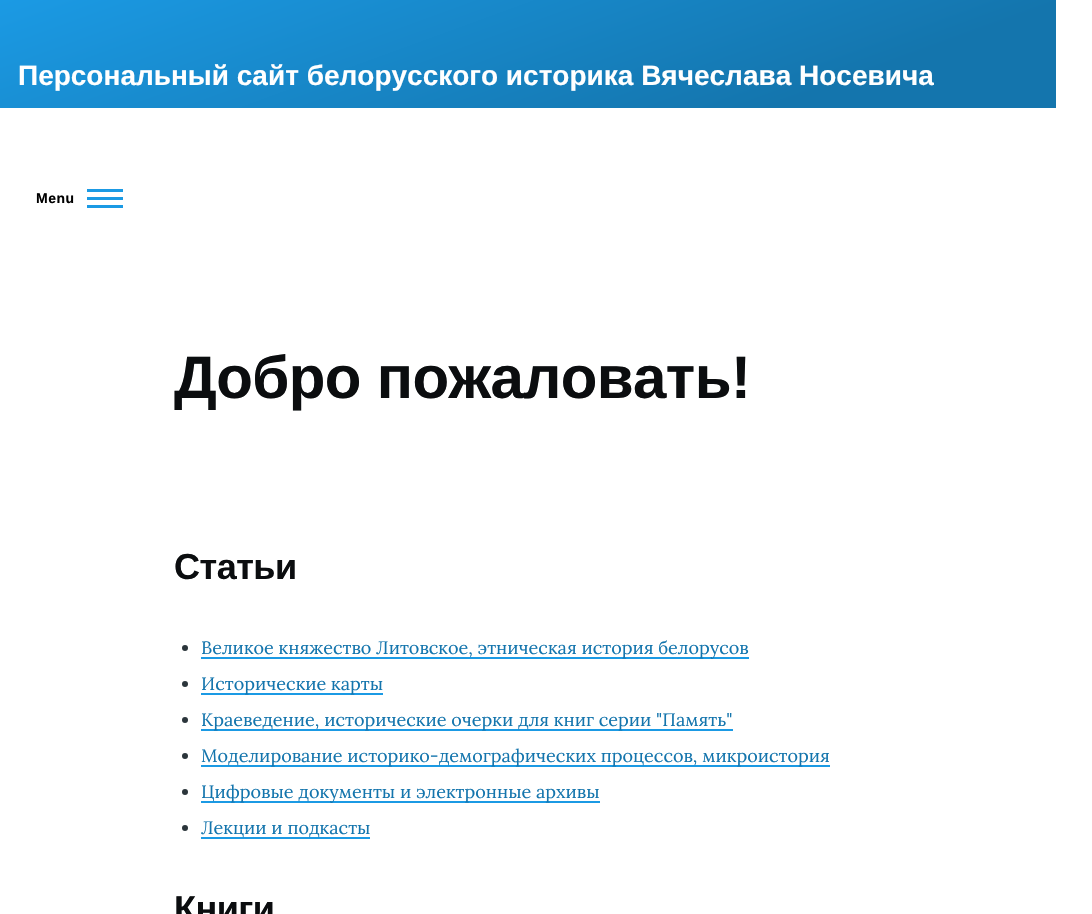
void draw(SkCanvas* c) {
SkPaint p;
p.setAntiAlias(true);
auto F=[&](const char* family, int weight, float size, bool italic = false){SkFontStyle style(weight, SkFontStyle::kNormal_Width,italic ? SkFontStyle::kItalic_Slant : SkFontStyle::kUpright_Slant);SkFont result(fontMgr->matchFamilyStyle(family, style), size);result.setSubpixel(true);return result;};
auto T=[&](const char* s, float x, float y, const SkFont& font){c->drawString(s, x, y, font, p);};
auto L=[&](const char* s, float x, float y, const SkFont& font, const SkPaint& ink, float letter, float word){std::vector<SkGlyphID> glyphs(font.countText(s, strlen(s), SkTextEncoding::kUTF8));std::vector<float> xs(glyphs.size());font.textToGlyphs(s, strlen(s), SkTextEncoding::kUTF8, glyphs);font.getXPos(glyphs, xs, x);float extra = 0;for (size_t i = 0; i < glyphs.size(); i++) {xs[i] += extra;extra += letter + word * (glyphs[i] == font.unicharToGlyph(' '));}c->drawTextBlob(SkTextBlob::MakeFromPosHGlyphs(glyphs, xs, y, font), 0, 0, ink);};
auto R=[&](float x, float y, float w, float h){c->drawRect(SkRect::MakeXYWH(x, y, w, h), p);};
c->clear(0xffffffff);
{
const SkColor colors[] = {0xff1b9ae4,0xff1475ad};
const float stops[] = {0,.79};
const SkPoint ends[] = {{449,-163}, {607,271}};
p.setShader(SkGradientShader::MakeLinear(ends, colors, stops, 2, SkTileMode::kClamp));
p.setAlpha(255);
}
R(0,0,1056,108);
auto f1 = F("Liberation Sans",700,28);
p.setShader(nullptr);
p.setColor(0xffffffff);
T("Персональный сайт белорусского историка Вячеслава Носевича",18,85,f1);
auto f2 = F("Liberation Sans",700,14);
p.setColor(0xff000000);
L("Menu",36,203,f2,p,.5,0);
p.setColor(0xff1b9ae4);
R(87,197,36,3);
R(87,189,36,3);
R(87,205,36,3);
auto f3 = F("Liberation Sans",700,60);
p.setColor(0xff0b0d0f);
L("Добро пожаловать!",174,398,f3,p,-.6,0);
auto f4 = F("Liberation Sans",700,36);
L("Статьи",174,579,f4,p,-.5,0);
p.setColor(0xff2b353b);
c->drawCircle(185,648,3,p);
p.setColor(0xff1b9ae4);
R(201,657,548,2);
auto f5 = F("Lora",400,18);
p.setColor(0xff1475ad);
T("Великое княжество Литовское, этническая история белорусов",201,654,f5);
p.setColor(0xff2b353b);
c->drawCircle(185,684,3,p);
p.setColor(0xff1b9ae4);
R(201,693,182,2);
p.setColor(0xff1475ad);
T("Исторические карты",201,690,f5);
p.setColor(0xff2b353b);
c->drawCircle(185,720,3,p);
p.setColor(0xff1b9ae4);
R(201,729,532,2);
p.setColor(0xff1475ad);
T("Краеведение, исторические очерки для книг серии \"Память\"",201,726,f5);
p.setColor(0xff2b353b);
c->drawCircle(185,756,3,p);
p.setColor(0xff1b9ae4);
R(201,765,629,2);
p.setColor(0xff1475ad);
T("Моделирование историко-демографических процессов, микроистория",201,762,f5);
p.setColor(0xff2b353b);
c->drawCircle(185,792,3,p);
p.setColor(0xff1b9ae4);
R(201,801,399,2);
p.setColor(0xff1475ad);
T("Цифровые документы и электронные архивы",201,798,f5);
p.setColor(0xff2b353b);
c->drawCircle(185,828,3,p);
p.setColor(0xff1b9ae4);
R(201,837,169,2);
p.setColor(0xff1475ad);
T("Лекции и подкасты",201,834,f5);
p.setColor(0xff0b0d0f);
L("Книги",174,921,f4,p,-.5,0);
}
